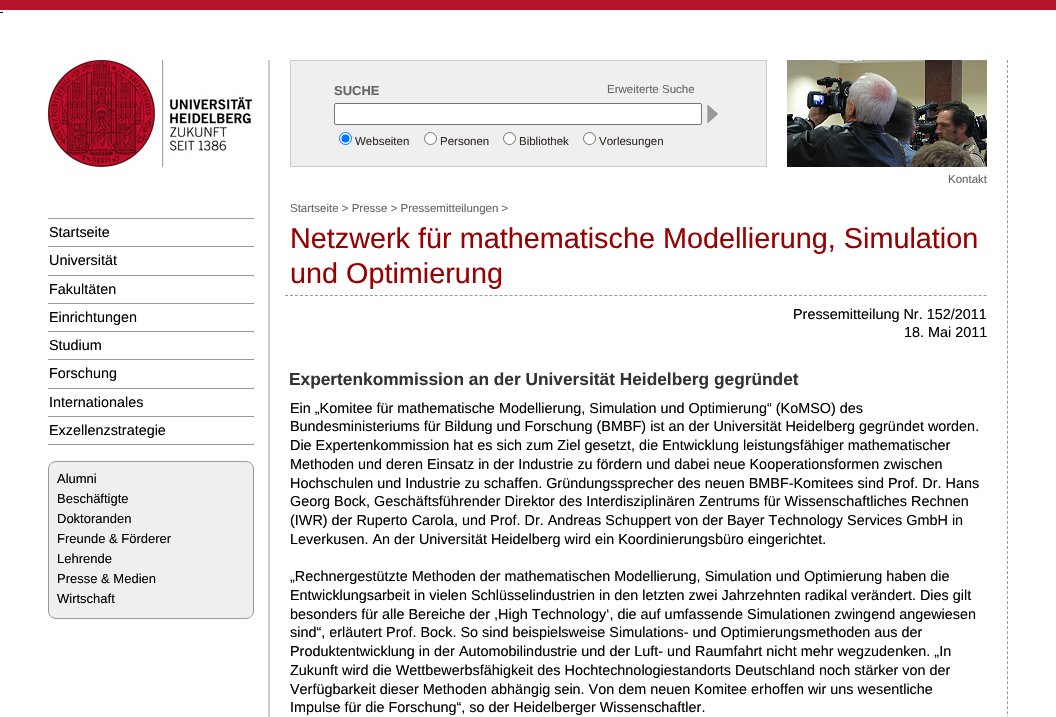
void draw(SkCanvas* c) {
SkPaint p;
p.setAntiAlias(true);
auto F=[&](const char* family, int weight, float size, bool italic = false){SkFontStyle style(weight, SkFontStyle::kNormal_Width,italic ? SkFontStyle::kItalic_Slant : SkFontStyle::kUpright_Slant);SkFont result(fontMgr->matchFamilyStyle(family, style), size);result.setSubpixel(true);return result;};
auto T=[&](const char* s, float x, float y, const SkFont& font){c->drawString(s, x, y, font, p);};
auto R=[&](float x, float y, float w, float h){c->drawRect(SkRect::MakeXYWH(x, y, w, h), p);};
auto I=[&](const char* path, float x, float y, float w, float h){auto image = SkImages::DeferredFromEncodedData(SkData::MakeFromFileName(path));c->drawImageRect(image, SkRect::MakeXYWH(x, y, w, h), SkSamplingOptions());};
auto P=[&](const char* data, bool evenOdd = false){SkPath result = *SkParsePath::FromSVGString(data);if (evenOdd) result.setFillType(SkPathFillType::kEvenOdd);return result;};
c->clear(0xffffffff);
p.setColor(0xffb5152b);
R(0,0,1056,10);
p.setColor(0xff000000);
R(0,12,3,1);
I("1.png",48,60,204,107);
p.setColor(0xff999999);
R(48,218,206,1);
auto f1 = F("Liberation Sans",400,14.4);
p.setColor(0xff000000);
T("Startseite",49,237,f1);
p.setColor(0xff999999);
R(48,246,206,1);
p.setColor(0xff000000);
T("Universität",49,265,f1);
p.setColor(0xff999999);
R(48,275,206,1);
p.setColor(0xff000000);
T("Fakultäten",49,294,f1);
p.setColor(0xff999999);
R(48,303,206,1);
p.setColor(0xff000000);
T("Einrichtungen",49,322,f1);
p.setColor(0xff999999);
R(48,331,206,1);
p.setColor(0xff000000);
T("Studium",49,350,f1);
p.setColor(0xff999999);
R(48,359,206,1);
p.setColor(0xff000000);
T("Forschung",49,378,f1);
p.setColor(0xff999999);
R(48,388,206,1);
p.setColor(0xff000000);
T("Internationales",49,407,f1);
p.setColor(0xff999999);
R(48,416,206,1);
p.setColor(0xff000000);
T("Exzellenzstrategie",49,435,f1);
p.setColor(0xff999999);
R(48,444,206,1);
p.setColor(0xffefefef);
c->drawRoundRect(SkRect::MakeXYWH(48.5,461.5,205,157),7.5,7.5,p);
p.setStroke(true);
p.setStrokeWidth(1);
p.setColor(0xff999999);
c->drawRoundRect(SkRect::MakeXYWH(48.5,461.5,205,157),7.5,7.5,p);
auto f2 = F("Liberation Sans",400,13);
p.setStroke(false);
p.setColor(0xff000000);
T("Alumni",57,483,f2);
T("Beschäftigte",57,503,f2);
T("Doktoranden",57,523,f2);
T("Freunde & Förderer",57,543,f2);
T("Lehrende",57,563,f2);
T("Presse & Medien",57,583,f2);
T("Wirtschaft",57,603,f2);
p.setStroke(true);
p.setColor(0xff999999);
p.setPathEffect(SkDashPathEffect::Make({{3,2.01f}}, 0));
c->drawPath(P("M1007.5 60v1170"),p);
p.setPathEffect(nullptr);
p.setStroke(false);
p.setColor(0xffcccccc);
R(268,60,2,657);
p.setColor(0xffefefef);
c->drawRect(SkRect::MakeXYWH(290.5,60.5,476,106),p);
p.setStroke(true);
p.setColor(0xffcccccc);
c->drawRect(SkRect::MakeXYWH(290.5,60.5,476,106),p);
auto f3 = F("Liberation Sans",700,13);
p.setStroke(false);
p.setColor(0xff666666);
T("SUCHE",334,95,f3);
auto f4 = F("Liberation Sans",400,11.5);
T("Erweiterte Suche",607,93,f4);
p.setColor(0xffffffff);
c->drawRoundRect(SkRect::MakeXYWH(334.5,103.5,367,21),1.5,1.5,p);
p.setStroke(true);
p.setColor(0xff767676);
c->drawRoundRect(SkRect::MakeXYWH(334.5,103.5,367,21),1.5,1.5,p);
I("2.png",707,105,11,18);
p.setStroke(false);
p.setColor(0xffffffff);
c->drawCircle(345.5,138.5,6,p);
p.setStroke(true);
p.setColor(0xff0075ff);
c->drawCircle(345.5,138.5,6,p);
p.setStroke(false);
c->drawCircle(345.5,138.5,4,p);
p.setColor(0xff312e25);
T("Webseiten",355,145,f4);
p.setColor(0xffffffff);
c->drawCircle(430.5,138.5,6,p);
p.setStroke(true);
p.setColor(0xff767676);
c->drawCircle(430.5,138.5,6,p);
p.setStroke(false);
p.setColor(0xff312e25);
T("Personen",440,145,f4);
p.setColor(0xffffffff);
c->drawCircle(509.5,138.5,6,p);
p.setStroke(true);
p.setColor(0xff767676);
c->drawCircle(509.5,138.5,6,p);
p.setStroke(false);
p.setColor(0xff312e25);
T("Bibliothek",519,145,f4);
p.setColor(0xffffffff);
c->drawCircle(589.5,138.5,6,p);
p.setStroke(true);
p.setColor(0xff767676);
c->drawCircle(589.5,138.5,6,p);
p.setStroke(false);
p.setColor(0xff312e25);
T("Vorlesungen",599,145,f4);
I("3.png",787,60,200,107);
p.setColor(0xff666666);
T("Kontakt",948,183,f4);
T("Startseite > Presse > Pressemitteilungen >",290,212,f4);
p.setStroke(true);
p.setColor(0xff999999);
p.setPathEffect(SkDashPathEffect::Make({{3,1.99f}}, 0));
c->drawPath(P("M285 295.5h702"),p);
p.setPathEffect(nullptr);
auto f5 = F("Liberation Sans",400,28.8);
p.setStroke(false);
p.setColor(0xff990000);
T("Netzwerk für mathematische Modellierung, Simulation",290,248,f5);
T("und Optimierung",290,283,f5);
p.setColor(0xff000000);
T("Pressemitteilung Nr. 152/2011",793,319,f1);
T("18. Mai 2011",904,337,f1);
auto f6 = F("Liberation Sans",700,17.3);
p.setColor(0xff333333);
T("Expertenkommission an der Universität Heidelberg gegründet",289,385,f6);
p.setColor(0xff000000);
T("Ein „Komitee für mathematische Modellierung, Simulation und Optimierung“ (KoMSO) des",290,413,f1);
T("Bundesministeriums für Bildung und Forschung (BMBF) ist an der Universität Heidelberg gegründet worden.",290,431,f1);
T("Die Expertenkommission hat es sich zum Ziel gesetzt, die Entwicklung leistungsfähiger mathematischer",290,450,f1);
T("Methoden und deren Einsatz in der Industrie zu fördern und dabei neue Kooperationsformen zwischen",290,469,f1);
T("Hochschulen und Industrie zu schaffen. Gründungssprecher des neuen BMBF-Komitees sind Prof. Dr. Hans",290,488,f1);
T("Georg Bock, Geschäftsführender Direktor des Interdisziplinären Zentrums für Wissenschaftliches Rechnen",290,506,f1);
T("(IWR) der Ruperto Carola, und Prof. Dr. Andreas Schuppert von der Bayer Technology Services GmbH in",290,525,f1);
T("Leverkusen. An der Universität Heidelberg wird ein Koordinierungsbüro eingerichtet.",290,544,f1);
T("„Rechnergestützte Methoden der mathematischen Modellierung, Simulation und Optimierung haben die",290,581,f1);
T("Entwicklungsarbeit in vielen Schlüsselindustrien in den letzten zwei Jahrzehnten radikal verändert. Dies gilt",290,600,f1);
T("besonders für alle Bereiche der ,High Technology‘, die auf umfassende Simulationen zwingend angewiesen",290,619,f1);
T("sind“, erläutert Prof. Bock. So sind beispielsweise Simulations- und Optimierungsmethoden aus der",290,637,f1);
T("Produktentwicklung in der Automobilindustrie und der Luft- und Raumfahrt nicht mehr wegzudenken. „In",290,656,f1);
T("Zukunft wird die Wettbewerbsfähigkeit des Hochtechnologiestandorts Deutschland noch stärker von der",290,675,f1);
T("Verfügbarkeit dieser Methoden abhängig sein. Von dem neuen Komitee erhoffen wir uns wesentliche",290,694,f1);
T("Impulse für die Forschung“, so der Heidelberger Wissenschaftler.",290,712,f1);
}
